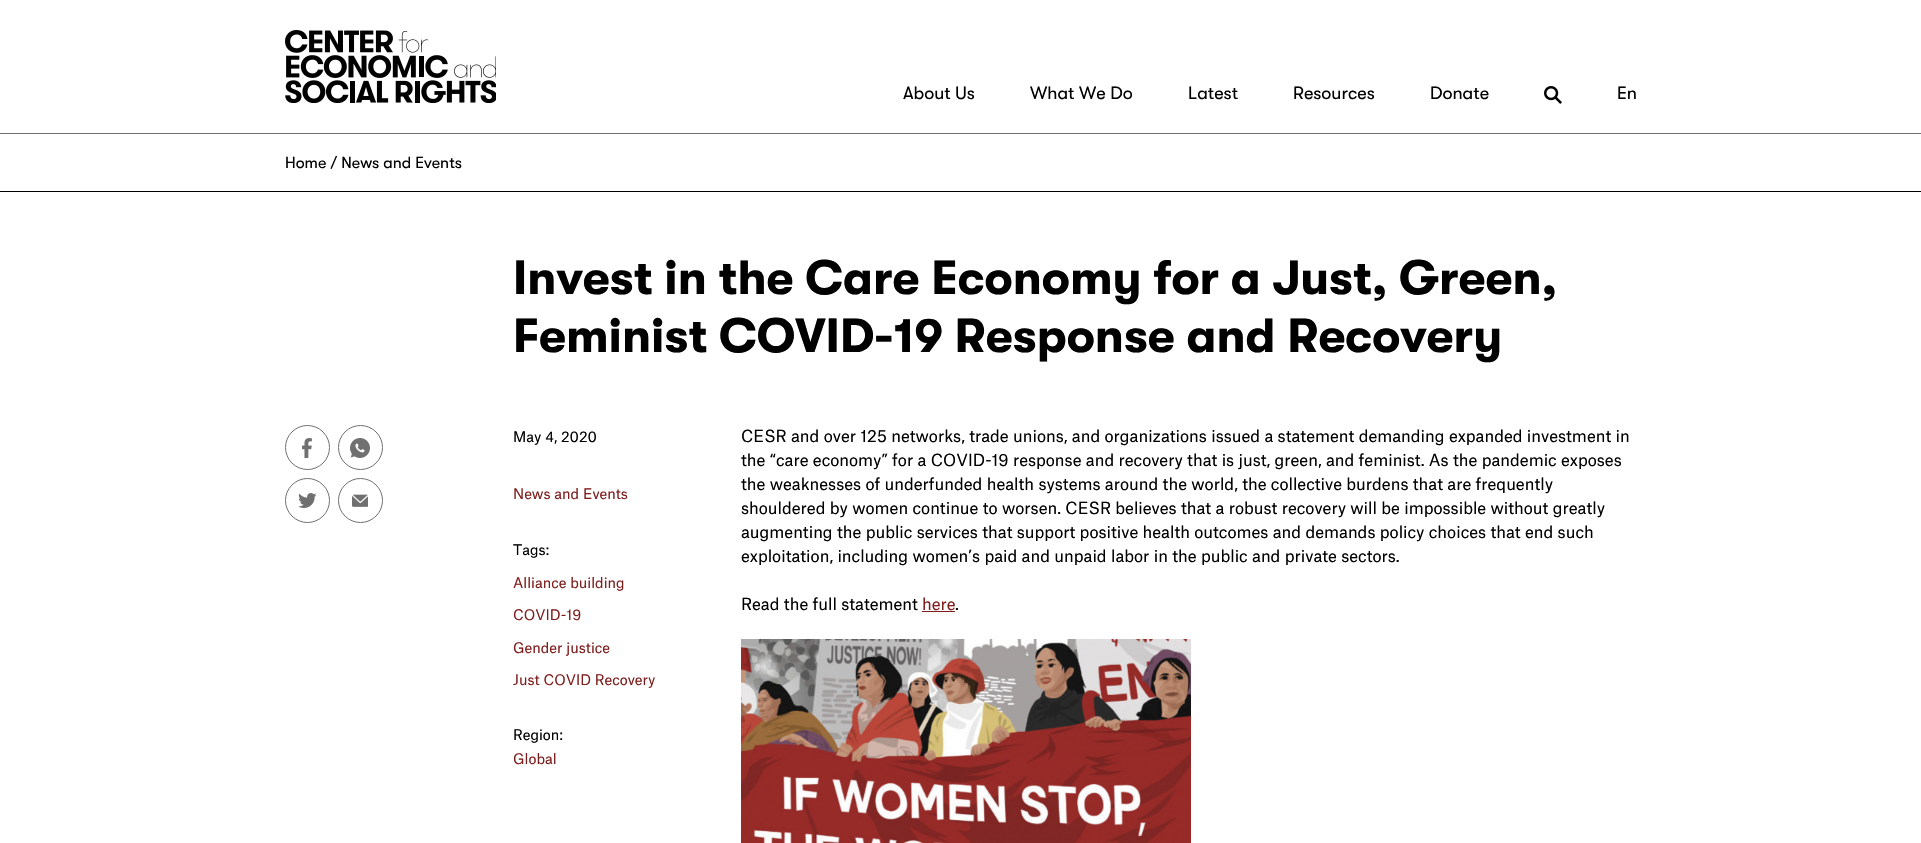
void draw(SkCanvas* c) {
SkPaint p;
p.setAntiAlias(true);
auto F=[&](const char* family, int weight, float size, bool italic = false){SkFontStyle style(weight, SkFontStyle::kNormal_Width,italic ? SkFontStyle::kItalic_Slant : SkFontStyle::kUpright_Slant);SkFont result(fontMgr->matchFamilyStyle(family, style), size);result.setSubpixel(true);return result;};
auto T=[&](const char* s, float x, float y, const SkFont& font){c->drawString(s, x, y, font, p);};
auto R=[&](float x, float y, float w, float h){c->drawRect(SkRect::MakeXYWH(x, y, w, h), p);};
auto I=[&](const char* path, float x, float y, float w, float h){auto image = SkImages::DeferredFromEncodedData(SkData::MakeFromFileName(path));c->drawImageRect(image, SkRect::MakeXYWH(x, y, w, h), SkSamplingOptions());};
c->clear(0xffffffff);
p.setColor(0xff707070);
R(0,133,1921,1);
I("1.png",285,30,211,73);
auto f1 = F("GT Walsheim",400,18);
p.setColor(0xff000000);
T("About Us",903,99,f1);
T("What We Do",1030,99,f1);
T("Latest",1188,99,f1);
T("Resources",1293,99,f1);
T("Donate",1430,99,f1);
I("2.png",1544,86,18,18);
T("En",1617,99,f1);
R(0,191,1921,1);
auto f2 = F("GT Walsheim",400,16);
T("Home / News and Events",285,168,f2);
auto f3 = F("GT Walsheim",700,48);
T("Invest in the Care Economy for a Just, Green,",513,294,f3);
T("Feminist COVID-19 Response and Recovery",513,352,f3);
p.setStroke(true);
p.setStrokeWidth(1);
p.setColor(0xff707070);
c->drawCircle(307.5,447.5,22,p);
I("3.png",302,438,10,20);
c->drawCircle(360.5,447.5,22,p);
I("4.png",350,438,20,20);
c->drawCircle(307.5,500.5,22,p);
I("5.png",298,493,18,15);
c->drawCircle(360.5,500.5,22,p);
I("6.png",352,494,16,13);
auto f4 = F("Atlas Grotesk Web",400,14);
p.setStroke(false);
p.setColor(0xff000000);
T("May 4, 2020",513,442,f4);
p.setColor(0xff7f1d1d);
T("News and Events",513,499,f4);
p.setColor(0xff000000);
T("Tags:",513,555,f4);
p.setColor(0xff7f1d1d);
T("Alliance building",513,588,f4);
T("COVID-19",513,620,f4);
T("Gender justice",513,653,f4);
T("Just COVID Recovery",513,685,f4);
p.setColor(0xff000000);
T("Region:",513,740,f4);
p.setColor(0xff7f1d1d);
T("Global",513,764,f4);
auto f5 = F("Atlas Grotesk Web",400,16);
p.setColor(0xff000000);
T("CESR and over 125 networks, trade unions, and organizations issued a statement demanding expanded investment in",741,442,f5);
T("the “care economy” for a COVID-19 response and recovery that is just, green, and feminist. As the pandemic exposes",741,466,f5);
T("the weaknesses of underfunded health systems around the world, the collective burdens that are frequently",741,490,f5);
T("shouldered by women continue to worsen. CESR believes that a robust recovery will be impossible without greatly",741,514,f5);
T("augmenting the public services that support positive health outcomes and demands policy choices that end such",741,538,f5);
T("exploitation, including women’s paid and unpaid labor in the public and private sectors.",741,562,f5);
T("Read the full statement",741,610,f5);
p.setColor(0xff7f1d1d);
T("here",922,610,f5);
R(922,611,33,1);
p.setColor(0xff000000);
T(".",955,610,f5);
I("7.png",741,639,450,204);
}
